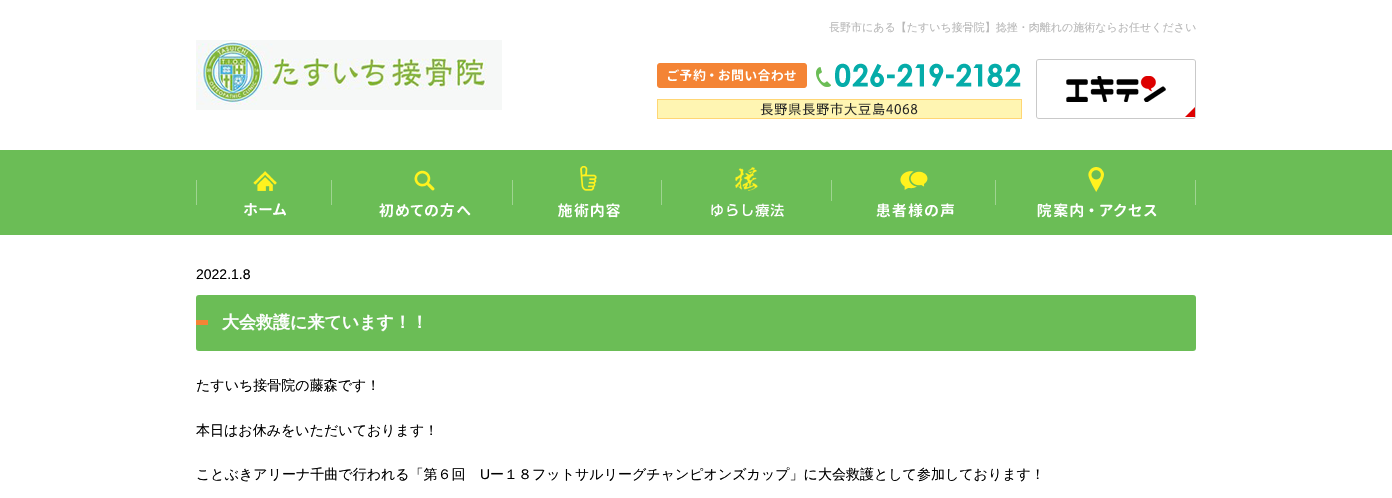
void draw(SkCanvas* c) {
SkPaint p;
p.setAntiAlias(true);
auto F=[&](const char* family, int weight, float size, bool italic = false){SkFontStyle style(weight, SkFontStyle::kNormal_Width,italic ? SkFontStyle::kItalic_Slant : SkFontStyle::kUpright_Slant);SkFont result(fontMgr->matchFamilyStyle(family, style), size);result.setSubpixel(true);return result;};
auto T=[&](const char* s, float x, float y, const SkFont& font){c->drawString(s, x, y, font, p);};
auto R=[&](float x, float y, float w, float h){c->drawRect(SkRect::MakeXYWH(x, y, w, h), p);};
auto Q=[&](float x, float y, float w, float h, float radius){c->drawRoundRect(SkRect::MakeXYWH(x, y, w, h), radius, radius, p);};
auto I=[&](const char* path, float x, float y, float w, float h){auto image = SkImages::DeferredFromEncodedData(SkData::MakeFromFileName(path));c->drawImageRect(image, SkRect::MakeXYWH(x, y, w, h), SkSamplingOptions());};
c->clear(0xffffffff);
auto f1 = F("WenQuanYi Zen Hei",500,11);
p.setColor(0xffb8b8b8);
T("長野市にある【たすいち接骨院】捻挫・肉離れの施術ならお任せください",829,31,f1);
I("1.png",657,63,365,56);
I("2.png",1036,59,160,60);
I("3.png",196,40,306,70);
p.setColor(0xff6bbd56);
R(0,150,1392,85);
I("4.png",196,171,136,45);
I("5.png",379,170,134,48);
I("6.png",558,166,104,52);
I("7.png",711,167,121,50);
I("8.png",876,171,120,47);
I("9.png",1037,167,159,51);
auto f2 = F("Liberation Sans",400,14);
p.setColor(0xff000000);
T("2022.1.8",196,279,f2);
p.setColor(0xff6bbd56);
Q(196,295,1000,56,3);
auto f3 = F("WenQuanYi Zen Hei",700,17);
p.setColor(0xfffefeff);
T("大会救護に来ています！！",222,328,f3);
p.setColor(0xfff48435);
R(196,320,12,5);
auto f4 = F("WenQuanYi Zen Hei",500,14);
p.setColor(0xff000000);
T("たすいち接骨院の藤森です！",196,390,f4);
T("本日はお休みをいただいております！",196,435,f4);
T("ことぶきアリーナ千曲で行われる「第６回",196,479,f4);
T("U",480,479,f2);
T("ー１８フットサルリーグチャンピオンズカップ」に大会救護として参加しております！",490,479,f4);
}
